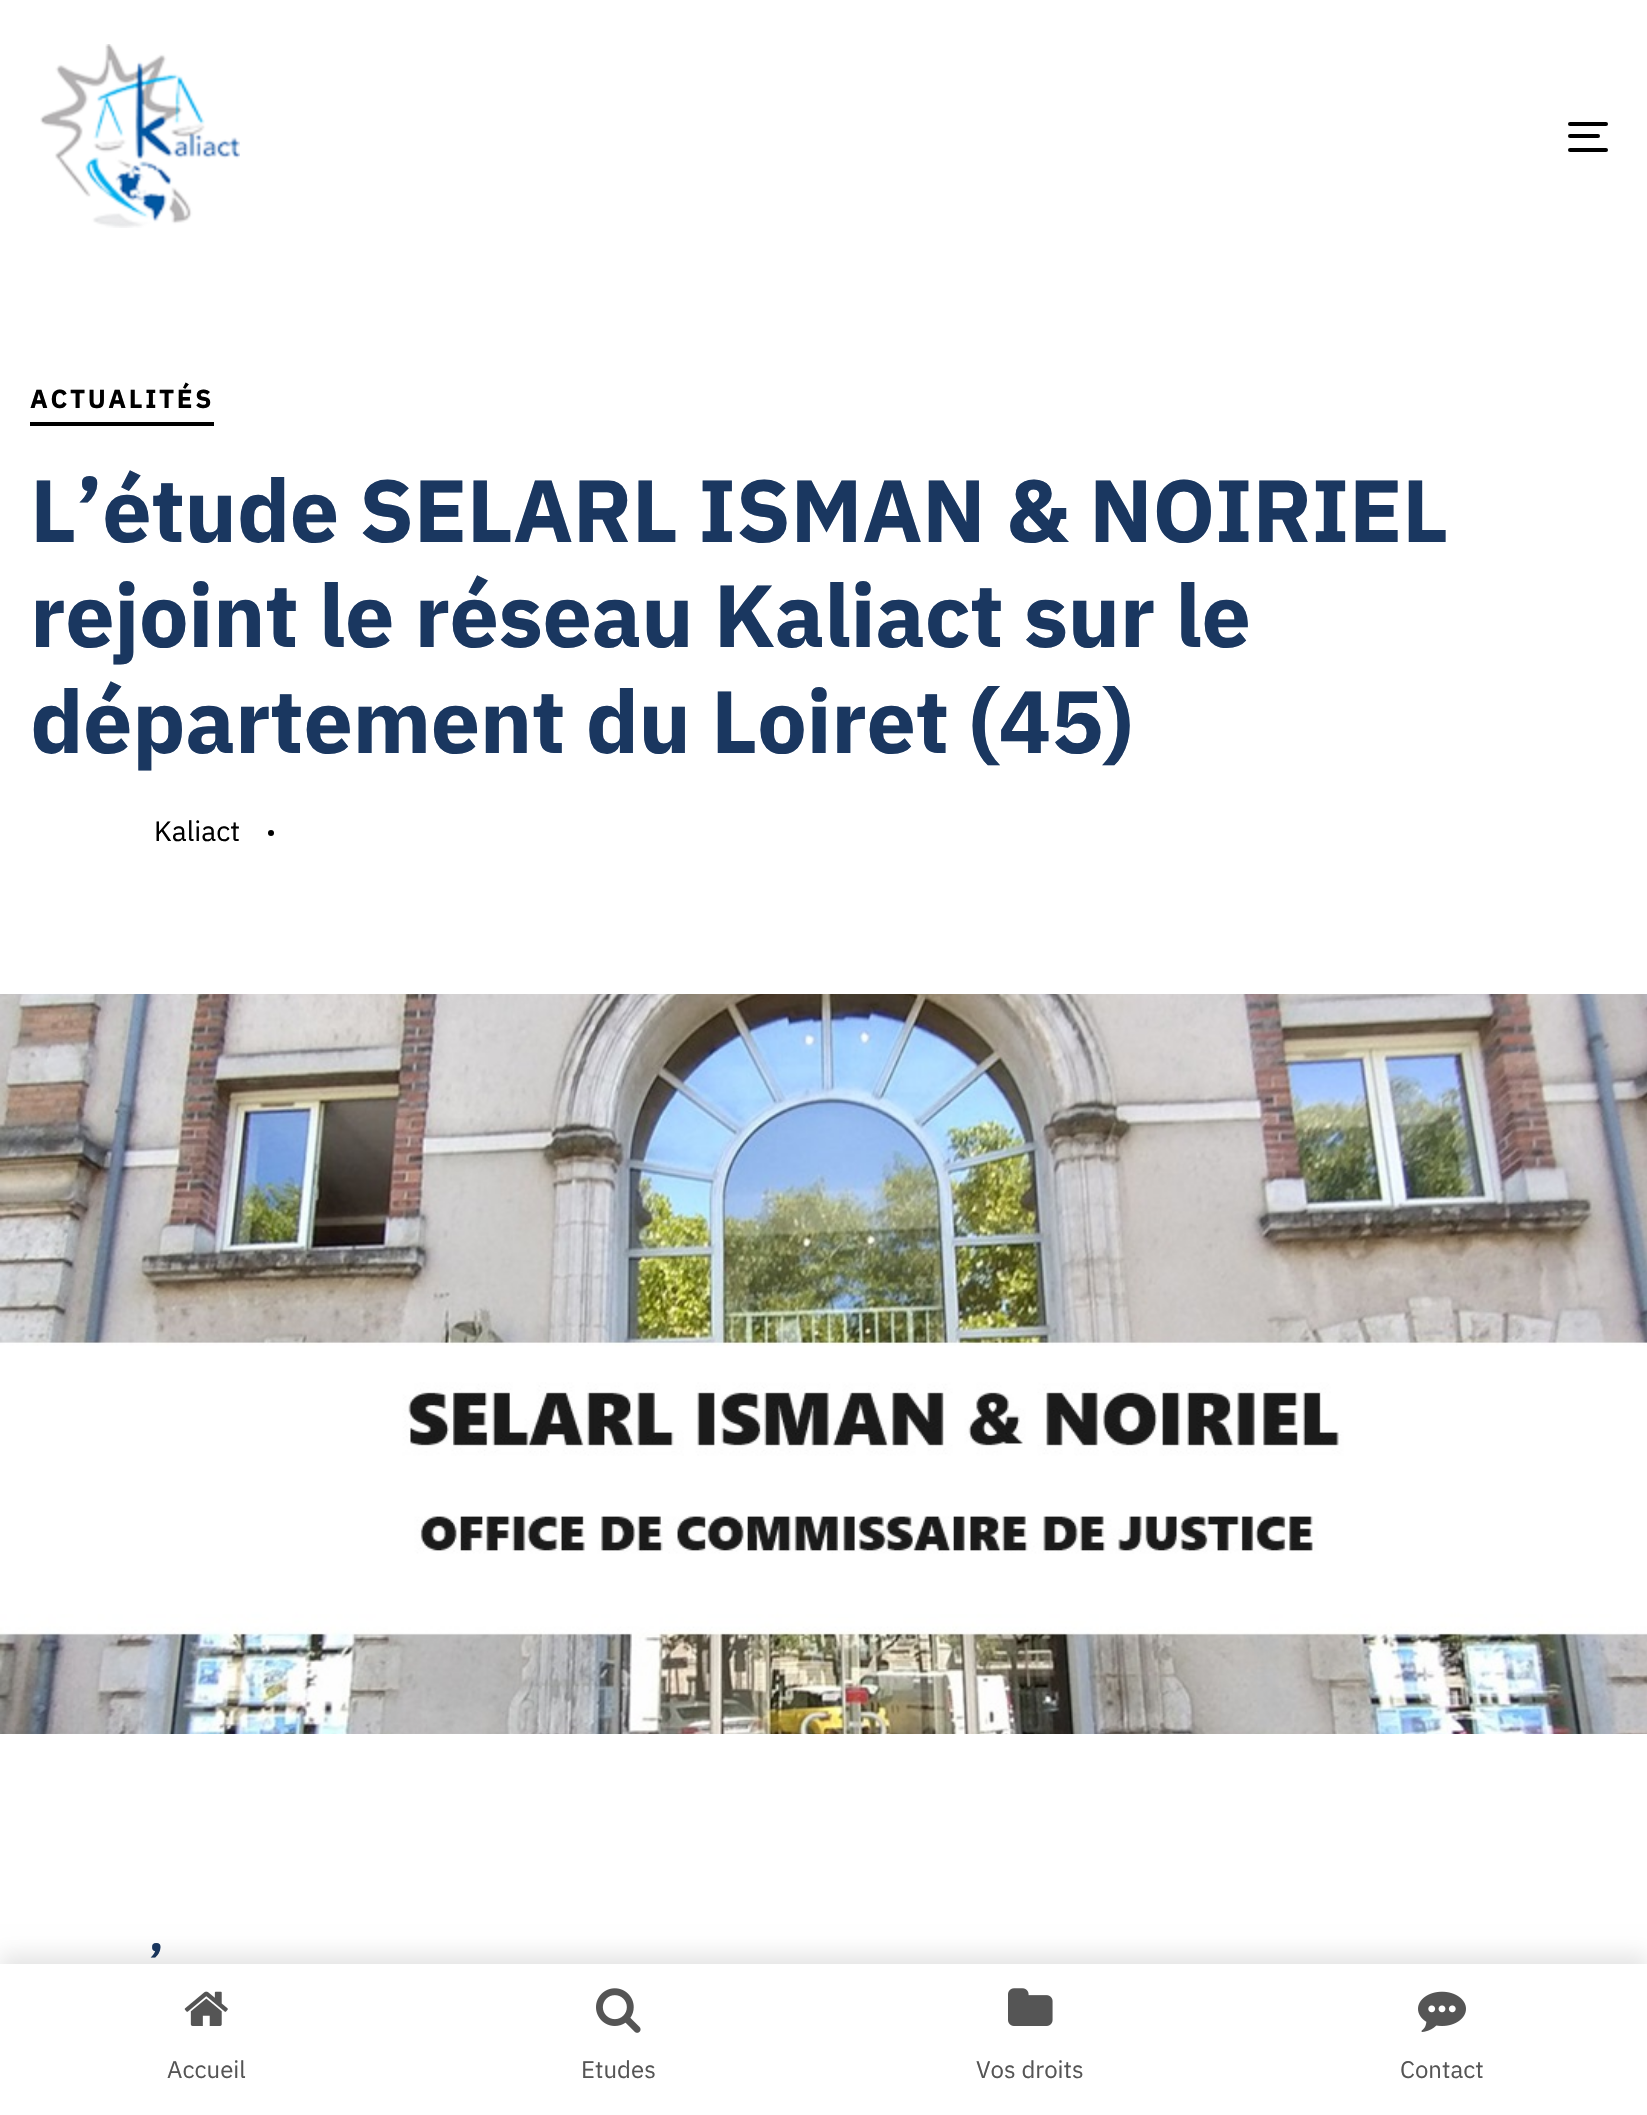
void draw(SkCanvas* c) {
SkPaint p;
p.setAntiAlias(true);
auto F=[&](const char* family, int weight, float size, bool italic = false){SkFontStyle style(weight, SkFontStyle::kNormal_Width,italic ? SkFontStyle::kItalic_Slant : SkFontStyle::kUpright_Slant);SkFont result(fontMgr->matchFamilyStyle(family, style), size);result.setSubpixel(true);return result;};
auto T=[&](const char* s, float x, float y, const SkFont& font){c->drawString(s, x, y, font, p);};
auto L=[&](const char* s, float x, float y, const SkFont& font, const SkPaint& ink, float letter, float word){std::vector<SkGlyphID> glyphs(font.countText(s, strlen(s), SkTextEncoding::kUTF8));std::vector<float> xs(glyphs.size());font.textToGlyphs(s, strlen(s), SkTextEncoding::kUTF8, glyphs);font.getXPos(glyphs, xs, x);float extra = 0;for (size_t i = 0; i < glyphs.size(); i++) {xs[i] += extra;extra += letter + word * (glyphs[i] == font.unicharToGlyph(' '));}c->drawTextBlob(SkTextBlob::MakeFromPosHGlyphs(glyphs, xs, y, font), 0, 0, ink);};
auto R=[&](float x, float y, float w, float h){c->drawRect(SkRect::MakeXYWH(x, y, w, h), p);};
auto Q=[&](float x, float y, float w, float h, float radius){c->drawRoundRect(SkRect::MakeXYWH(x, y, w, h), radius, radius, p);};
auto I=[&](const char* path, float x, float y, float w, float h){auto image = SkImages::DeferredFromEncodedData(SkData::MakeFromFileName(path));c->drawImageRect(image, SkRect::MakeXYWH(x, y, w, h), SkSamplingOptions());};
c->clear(0xffffffff);
I("1.png",40,44,200,184);
p.setColor(0xff000000);
Q(1568,122,40,4,2);
Q(1568,134,32,4,2);
Q(1568,148,40,4,2);
auto f1 = F("IBM Plex Sans",700,26);
L("ACTUALITÉS",30,408,f1,p,2.6,0);
R(30,422,184,4);
auto f2 = F("IBM Plex Sans",700,88);
p.setColor(0xff1a3760);
L("L’étude SELARL ISMAN & NOIRIEL",30,542,f2,p,-.4,0);
L("rejoint le réseau Kaliact sur le",30,647,f2,p,-.4,0);
L("département du Loiret (45)",30,753,f2,p,-.4,0);
auto f3 = F("IBM Plex Sans",400,28);
p.setColor(0xff000000);
T("Kaliact",154,841,f3);
c->drawCircle(271,833,3,p);
I("2.png",0,994,1647,740);
auto f4 = F("IBM Plex Sans",700,48);
p.setColor(0xff1a3760);
L("’",149,1979,f4,p,-.4,0);
p.setColor(0x1a000000);
p.setMaskFilter(SkMaskFilter::MakeBlur(kNormal_SkBlurStyle, 10));
c->drawRect(SkRect::MakeXYWH(0,1954,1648,152),p);
p.setMaskFilter(nullptr);
p.setColor(0xffffffff);
R(0,1964,1647,151);
I("3.png",184,1991,44,35);
auto f5 = F("IBM Plex Sans",400,24);
p.setColor(0xff555555);
T("Accueil",167,2078,f5);
I("4.png",596,1988,45,45);
T("Etudes",581,2078,f5);
I("5.png",1008,1988,45,38);
T("Vos droits",976,2078,f5);
I("6.png",1418,1991,48,41);
T("Contact",1400,2078,f5);
}
